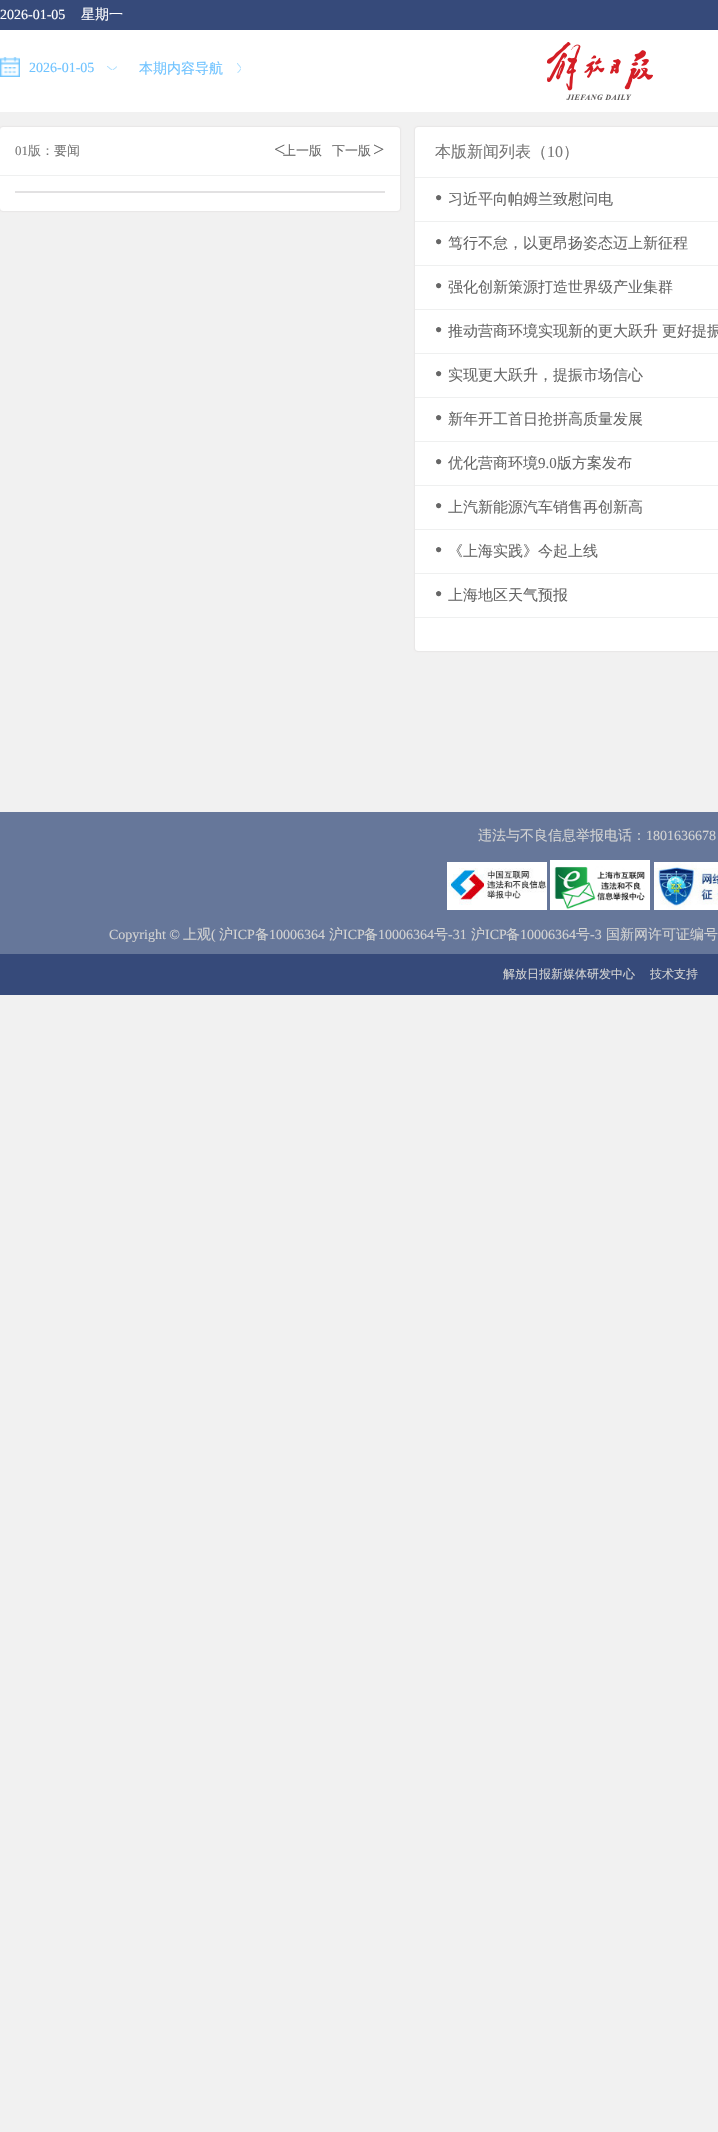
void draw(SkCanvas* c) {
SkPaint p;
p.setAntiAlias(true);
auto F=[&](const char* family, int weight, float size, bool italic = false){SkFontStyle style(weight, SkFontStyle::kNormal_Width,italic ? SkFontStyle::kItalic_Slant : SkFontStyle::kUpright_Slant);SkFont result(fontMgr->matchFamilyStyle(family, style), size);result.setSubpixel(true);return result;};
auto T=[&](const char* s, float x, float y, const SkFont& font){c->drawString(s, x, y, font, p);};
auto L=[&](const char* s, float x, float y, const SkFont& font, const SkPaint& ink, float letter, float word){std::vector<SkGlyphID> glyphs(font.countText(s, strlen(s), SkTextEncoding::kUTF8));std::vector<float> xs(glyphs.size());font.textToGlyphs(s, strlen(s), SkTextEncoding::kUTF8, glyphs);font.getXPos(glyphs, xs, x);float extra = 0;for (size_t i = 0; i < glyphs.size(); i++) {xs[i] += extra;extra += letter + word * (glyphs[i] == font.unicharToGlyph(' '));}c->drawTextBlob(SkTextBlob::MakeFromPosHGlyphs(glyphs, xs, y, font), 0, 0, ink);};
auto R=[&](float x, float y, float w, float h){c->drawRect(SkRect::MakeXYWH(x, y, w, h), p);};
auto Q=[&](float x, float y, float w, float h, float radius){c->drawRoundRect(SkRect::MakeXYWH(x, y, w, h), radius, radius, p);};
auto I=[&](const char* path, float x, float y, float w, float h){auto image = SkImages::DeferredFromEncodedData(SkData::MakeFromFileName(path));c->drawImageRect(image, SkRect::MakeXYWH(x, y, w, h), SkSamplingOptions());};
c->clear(0xfff1f1f1);
p.setColor(0xff364a7a);
R(0,0,718,30);
auto f1 = F("Liberation Serif",400,14);
p.setColor(0xffffffff);
T("2026-01-05",0,19,f1);
auto f2 = F("WenQuanYi Zen Hei",500,14);
T("星期一",81,19,f2);
R(0,30,718,82);
I("1.png",0,57,20,20);
p.setColor(0xff6fc3ff);
T("2026-01-05",29,72,f1);
I("2.png",107,66,10,4);
T("本期内容导航",139,73,f2);
I("3.png",237,63,4,10);
I("4.png",547,42,106,58);
p.setColor(0x24040000);
p.setMaskFilter(SkMaskFilter::MakeBlur(kNormal_SkBlurStyle, 1));
c->drawRoundRect(SkRect::MakeXYWH(0,127,400,84),3,3,p);
p.setMaskFilter(nullptr);
p.setColor(0xffffffff);
Q(0,127,400,84,3);
p.setColor(0xffeff0f0);
R(0,175,400,1);
auto f3 = F("Liberation Serif",400,13);
p.setColor(0xff777777);
T("01",15,155,f3);
auto f4 = F("WenQuanYi Zen Hei",500,13);
T("版：要闻",28,155,f4);
p.setColor(0xff666666);
T("上一版",283,155,f4);
auto f5 = F("Liberation Serif",400,20);
L("<",274,156,f5,p,-4,0);
T("下一版",332,155,f4);
L(">",373,156,f5,p,-4,0);
p.setColor(0xffe2e1e2);
R(15,191,370,2);
p.setColor(0x24040000);
p.setMaskFilter(SkMaskFilter::MakeBlur(kNormal_SkBlurStyle, 1));
c->drawRoundRect(SkRect::MakeXYWH(415,127,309,524),3,3,p);
p.setMaskFilter(nullptr);
p.setColor(0xffffffff);
Q(415,127,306,524,3);
p.setColor(0xffeff0f0);
R(415,177,303,1);
auto f6 = F("WenQuanYi Zen Hei",500,16);
p.setColor(0xff777777);
T("本版新闻列表（",435,157,f6);
auto f7 = F("Liberation Serif",400,16);
T("10",547,157,f7);
T("）",563,157,f6);
p.setColor(0xffeff0f0);
R(415,221,303,1);
auto f8 = F("Liberation Serif",400,12);
p.setColor(0xff666666);
T("●",435,201,f8);
auto f9 = F("WenQuanYi Zen Hei",500,15);
T("习近平向帕姆兰致慰问电",448,204,f9);
p.setColor(0xffeff0f0);
R(415,265,303,1);
p.setColor(0xff666666);
T("●",435,245,f8);
T("笃行不怠，以更昂扬姿态迈上新征程",448,248,f9);
p.setColor(0xffeff0f0);
R(415,309,303,1);
p.setColor(0xff666666);
T("●",435,289,f8);
T("强化创新策源打造世界级产业集群",448,292,f9);
p.setColor(0xffeff0f0);
R(415,353,303,1);
p.setColor(0xff666666);
T("●",435,333,f8);
T("推动营商环境实现新的更大跃升",448,336,f9);
T("更好提振",662,336,f9);
p.setColor(0xffeff0f0);
R(415,397,303,1);
p.setColor(0xff666666);
T("●",435,377,f8);
T("实现更大跃升，提振市场信心",448,380,f9);
p.setColor(0xffeff0f0);
R(415,441,303,1);
p.setColor(0xff666666);
T("●",435,421,f8);
T("新年开工首日抢拼高质量发展",448,424,f9);
p.setColor(0xffeff0f0);
R(415,485,303,1);
p.setColor(0xff666666);
T("●",435,465,f8);
T("优化营商环境",448,468,f9);
auto f10 = F("Liberation Serif",400,15);
T("9.0",538,468,f10);
T("版方案发布",557,468,f9);
p.setColor(0xffeff0f0);
R(415,529,303,1);
p.setColor(0xff666666);
T("●",435,509,f8);
T("上汽新能源汽车销售再创新高",448,512,f9);
p.setColor(0xffeff0f0);
R(415,573,303,1);
p.setColor(0xff666666);
T("●",435,553,f8);
T("《上海实践》今起上线",448,556,f9);
p.setColor(0xffeff0f0);
R(415,617,303,1);
p.setColor(0xff666666);
T("●",435,597,f8);
T("上海地区天气预报",448,600,f9);
p.setColor(0xff66779a);
R(0,812,718,142);
p.setColor(0xffd2d2d2);
T("违法与不良信息举报电话：",478,840,f2);
T("1801636678",646,840,f1);
I("5.png",447,862,100,48);
I("6.png",550,860,100,50);
I("7.png",654,862,64,48);
T("Copyright ©",109,939,f1);
T("上观",183,939,f2);
T("(",211,939,f1);
T("沪",219,939,f2);
T("ICP",233,939,f1);
T("备",255,939,f2);
T("10006364",269,939,f1);
T("沪",329,939,f2);
T("ICP",343,939,f1);
T("备",364,939,f2);
T("10006364",378,939,f1);
T("号",434,939,f2);
T("-31",448,939,f1);
T("沪",471,939,f2);
T("ICP",485,939,f1);
T("备",506,939,f2);
T("10006364",520,939,f1);
T("号",576,939,f2);
T("-3",590,939,f1);
T("国新网许可证编号",606,939,f2);
p.setColor(0xff364a7a);
R(0,954,718,41);
auto f11 = F("WenQuanYi Zen Hei",500,12);
p.setColor(0xffd2d2d2);
T("解放日报新媒体研发中心",503,978,f11);
T("技术支持",650,978,f11);
}
